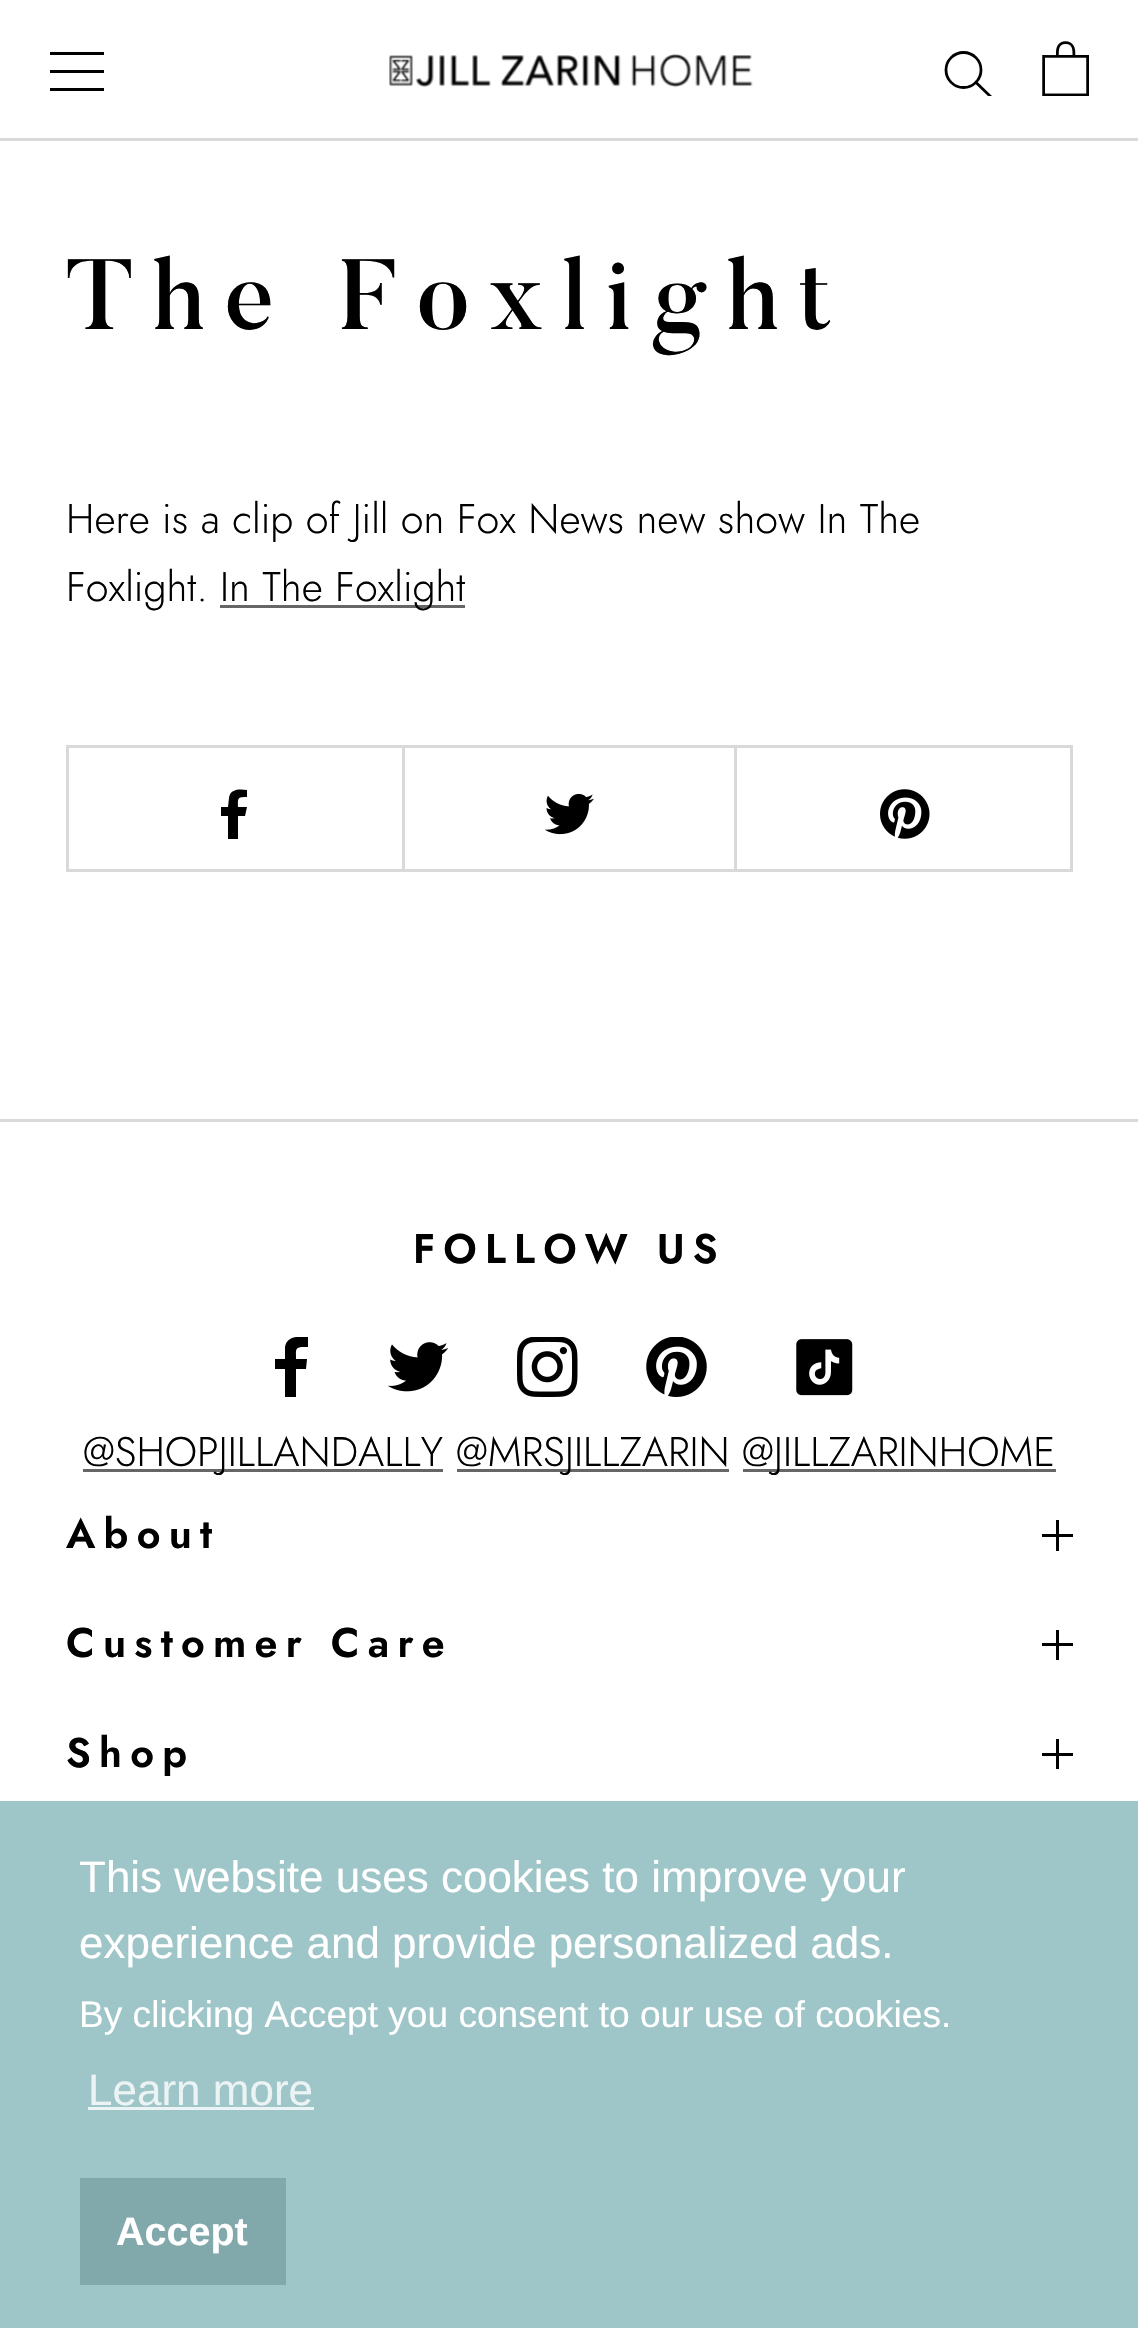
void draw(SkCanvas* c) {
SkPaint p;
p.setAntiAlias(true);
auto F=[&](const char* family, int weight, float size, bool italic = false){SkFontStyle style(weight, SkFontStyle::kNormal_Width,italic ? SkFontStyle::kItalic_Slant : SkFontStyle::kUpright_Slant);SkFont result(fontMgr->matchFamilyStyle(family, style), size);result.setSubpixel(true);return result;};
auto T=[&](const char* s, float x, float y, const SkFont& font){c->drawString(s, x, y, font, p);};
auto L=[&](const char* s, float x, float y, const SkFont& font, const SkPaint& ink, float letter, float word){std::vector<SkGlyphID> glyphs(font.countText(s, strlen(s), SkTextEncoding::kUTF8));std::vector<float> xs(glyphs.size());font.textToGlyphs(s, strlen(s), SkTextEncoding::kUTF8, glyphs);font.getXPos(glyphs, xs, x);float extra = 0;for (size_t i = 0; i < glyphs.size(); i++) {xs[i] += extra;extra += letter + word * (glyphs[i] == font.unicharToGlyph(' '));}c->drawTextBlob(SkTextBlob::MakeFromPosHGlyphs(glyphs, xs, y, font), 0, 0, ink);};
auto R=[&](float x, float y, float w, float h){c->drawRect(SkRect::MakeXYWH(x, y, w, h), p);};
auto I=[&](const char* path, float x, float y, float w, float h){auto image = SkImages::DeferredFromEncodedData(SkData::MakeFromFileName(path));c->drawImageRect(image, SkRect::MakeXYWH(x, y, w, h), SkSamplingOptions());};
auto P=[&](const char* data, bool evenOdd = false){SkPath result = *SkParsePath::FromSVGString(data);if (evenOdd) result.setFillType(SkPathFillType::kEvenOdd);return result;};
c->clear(0xffffffff);
p.setColor(0xffd9d9d9);
R(0,138,1138,3);
p.setColor(0xff000000);
c->drawPath(P("M50 91v-3h54v3zm0-21h54v3h-54zm0-18h54v3h-54z"),p);
I("1.png",389,54,364,34);
c->save();
c->clipRect(SkRect::MakeXYWH(943,50,50,46));
p.setStroke(true);
p.setStrokeWidth(2.8);
p.setStrokeCap(SkPaint::kSquare_Cap);
c->drawPath(P("M990 96l-14-13.5"),p);
c->restore();
p.setStrokeCap(SkPaint::kButt_Cap);
c->drawCircle(963.5,70,17.5,p);
I("2.png",1042,41,47,55);
auto f1 = F("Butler",500,99);
p.setStroke(false);
L("The Foxlight",66,329,f1,p,19.75,0);
auto f2 = F("Jost",300,41.25);
T("Here is a clip of Jill on Fox News new show In The",66,533,f2);
T("Foxlight.",66,601,f2);
p.setColor(0xff666666);
R(220,605,245,3);
p.setColor(0xff000000);
T("In The Foxlight",220,601,f2);
p.setColor(0xffd9d9d9);
R(734,745,339,3);
R(1070,745,3,127);
R(734,869,339,3);
R(734,745,3,127);
R(402,745,335,3);
R(402,869,335,3);
R(402,745,3,127);
R(66,745,338,3);
R(66,869,338,3);
R(66,745,3,127);
p.setColor(0xff000000);
c->drawPath(P("M238 839v-23h7l2-9h-9c0-9-1-10 9-10v-7c-8-1-17-1-18 8l-1 9h-7v9h7v23z"),p);
I("3.png",545,793,49,42);
I("4.png",880,789,50,50);
p.setColor(0xffd9d9d9);
R(0,1119,1138,3);
auto f3 = F("Jost",600,41.25);
p.setColor(0xff000000);
L("FOLLOW US",413,1263,f3,p,8.25,0);
c->save();
c->clipRect(SkRect::MakeXYWH(261,1337,61,60));
c->drawPath(P("M296 1397v-28h10l1-10h-11c0-12-1-12 12-12v-10c-10-1-21-1-23 10v12h-10v10h10v28z"),p);
c->restore();
I("5.png",388,1342,60,50);
I("6.png",517,1337,61,60);
I("7.png",646,1337,61,60);
I("8.png",796,1339,57,57);
p.setColor(0xff666666);
R(83,1469,360,3);
p.setColor(0xff000000);
T("@SHOPJILLANDALLY",83,1466,f2);
p.setColor(0xff666666);
R(457,1469,272,3);
p.setColor(0xff000000);
T("@MRSJILLZARIN",456,1466,f2);
p.setColor(0xff666666);
R(743,1469,313,3);
p.setColor(0xff000000);
T("@JILLZARINHOME",742,1466,f2);
L("About",66,1548,f3,p,8.25,0);
R(1056,1520,3,31);
R(1042,1534,31,3);
L("Customer Care",66,1657,f3,p,8.25,0);
R(1056,1630,3,30);
R(1042,1643,31,3);
L("Shop",66,1767,f3,p,8.25,0);
R(1056,1739,3,30);
R(1042,1753,31,3);
p.setColor(0xff9ec5c7);
R(0,1801,1138,527);
auto f4 = F("Liberation Sans",400,44);
p.setColor(0xffffffff);
T("This website uses cookies to improve your",79,1892,f4);
T("experience and provide personalized ads.",79,1958,f4);
auto f5 = F("Liberation Sans",400,37.1);
T("By clicking Accept you consent to our use of cookies.",79,2027,f5);
p.setColor(0xffecf3f4);
T("Learn more",88,2105,f4);
R(88,2107,226,3);
p.setColor(0xff81a9ab);
R(80,2178,206,107);
auto f6 = F("Liberation Sans",700,39.5);
p.setColor(0xffffffff);
T("Accept",116,2245,f6);
}
